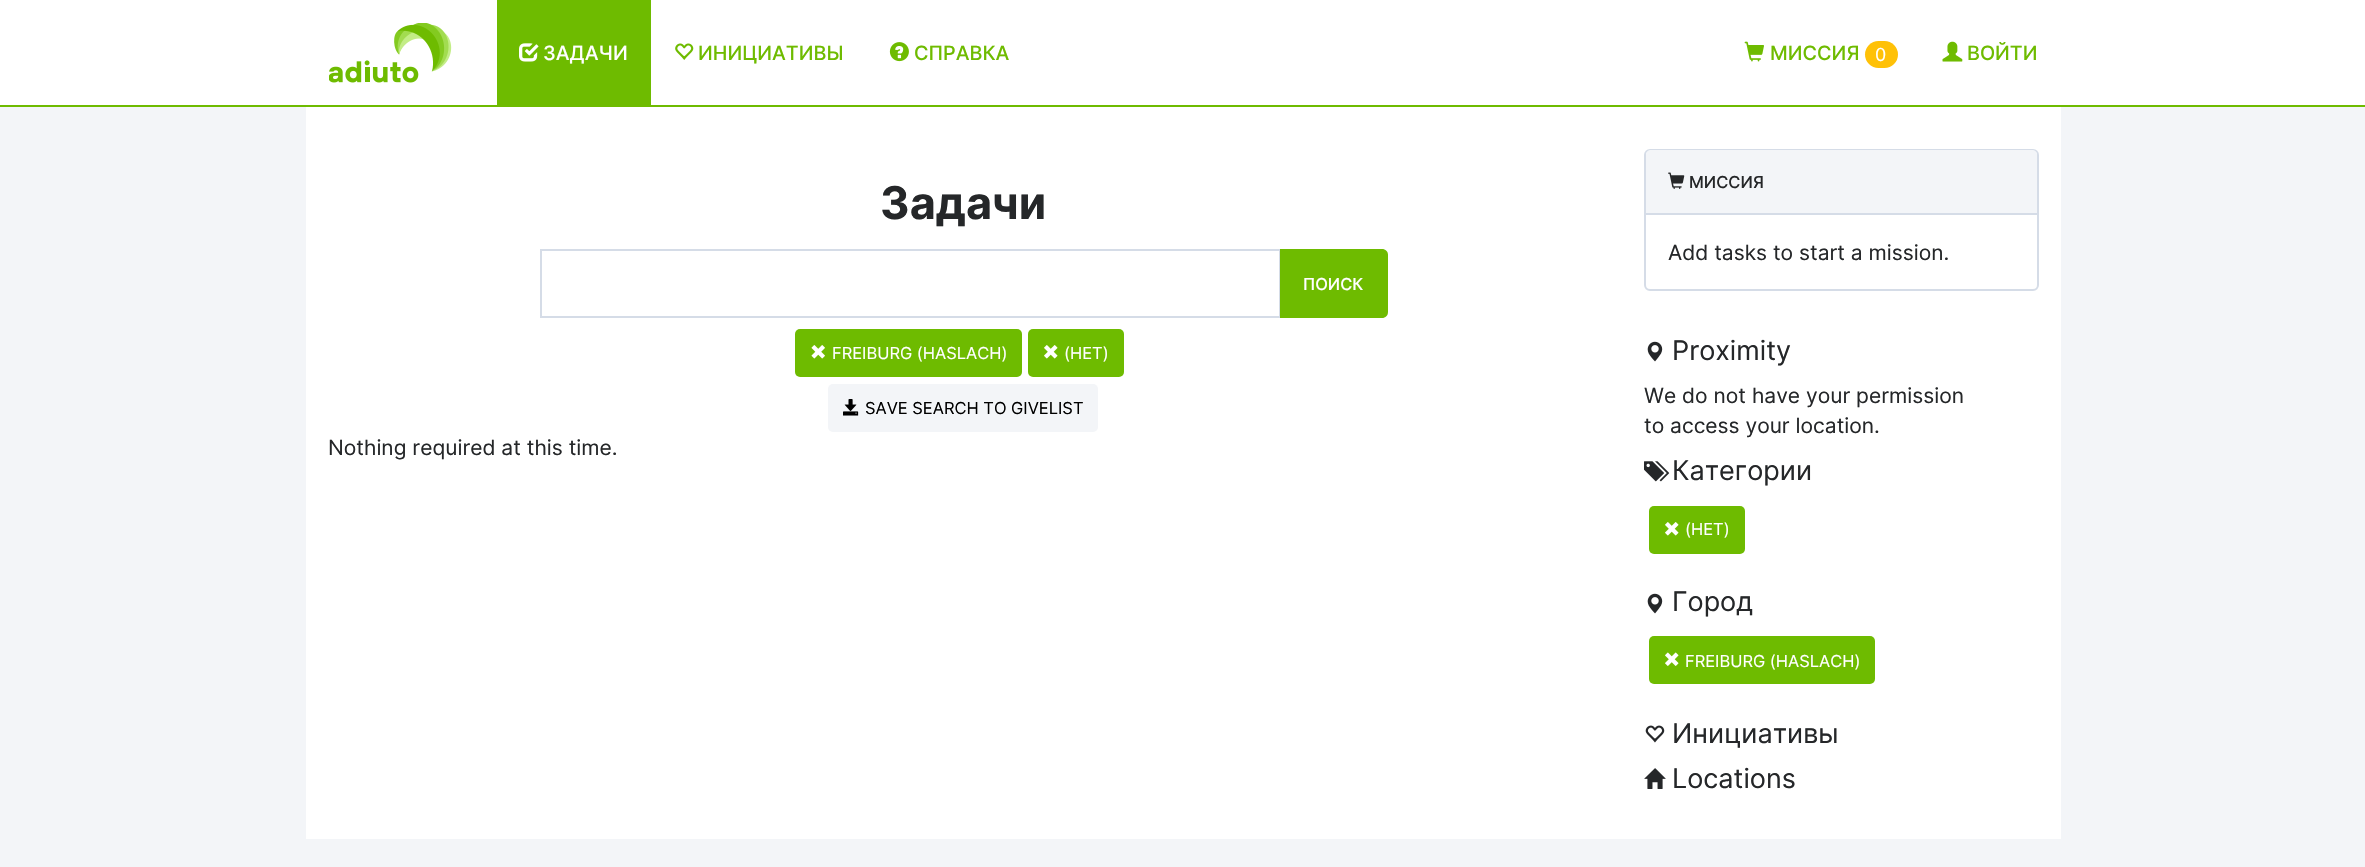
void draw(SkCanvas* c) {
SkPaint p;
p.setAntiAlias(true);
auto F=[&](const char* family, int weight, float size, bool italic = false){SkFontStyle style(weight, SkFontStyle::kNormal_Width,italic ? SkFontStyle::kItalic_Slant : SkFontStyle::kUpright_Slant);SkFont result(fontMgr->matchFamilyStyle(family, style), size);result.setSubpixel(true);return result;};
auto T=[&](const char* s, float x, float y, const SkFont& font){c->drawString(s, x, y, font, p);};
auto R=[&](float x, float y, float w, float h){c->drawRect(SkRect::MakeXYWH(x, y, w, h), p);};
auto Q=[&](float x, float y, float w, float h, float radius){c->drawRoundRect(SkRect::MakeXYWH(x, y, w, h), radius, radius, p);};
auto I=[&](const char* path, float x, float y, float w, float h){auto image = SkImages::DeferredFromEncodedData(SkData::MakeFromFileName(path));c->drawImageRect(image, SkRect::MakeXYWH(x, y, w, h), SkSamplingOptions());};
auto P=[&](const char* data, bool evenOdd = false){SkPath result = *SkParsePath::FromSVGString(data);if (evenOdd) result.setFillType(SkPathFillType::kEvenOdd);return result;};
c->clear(0xfff3f5f8);
p.setColor(0xffffffff);
R(0,0,2365,105);
p.setColor(0xff6ebb00);
R(0,105,2365,2);
I("1.png",329,23,123,60);
R(497,0,154,105);
I("2.png",519,43,20,19);
auto f1 = F("Inter",500,19.75);
p.setColor(0xffffffff);
T("ЗАДАЧИ",543,60,f1);
I("3.png",675,43,19,17);
p.setColor(0xff6ebb00);
T("ИНИЦИАТИВЫ",698,60,f1);
I("4.png",889,42,20,20);
T("СПРАВКА",914,60,f1);
I("5.png",1744,41,20,21);
T("МИССИЯ",1770,60,f1);
p.setColor(0xffffc107);
Q(1865,41,33,27,13.5);
auto f2 = F("Inter",400,18);
p.setColor(0xffffffff);
T("0",1875,61,f2);
I("6.png",1942,41,21,21);
p.setColor(0xff6ebb00);
T("ВОЙТИ",1967,60,f1);
p.setColor(0xffffffff);
R(306,107,1755,732);
auto f3 = F("Inter",700,45);
p.setColor(0xff252729);
T("Задачи",880,219,f3);
p.setStroke(true);
p.setStrokeWidth(2);
p.setColor(0xffd5dce7);
c->drawRect(SkRect::MakeXYWH(541,250,739,67),p);
p.setStroke(false);
p.setColor(0xff6ebb00);
c->drawPath(P("M1280 249h102c3.5 0 6 2.5 6 6v57c0 3.5-2.5 6-6 6h-102z"),p);
auto f4 = F("Inter",500,16.5);
p.setColor(0xffffffff);
T("ПОИСК",1303,290,f4);
p.setColor(0xff6ebb00);
Q(795,329,227,48,5);
I("7.png",811,345,14,14);
auto f5 = F("Inter",400,16.5);
p.setColor(0xffffffff);
T("FREIBURG (HASLACH)",832,359,f5);
p.setColor(0xff6ebb00);
Q(1028,329,96,48,5);
I("8.png",1044,345,14,14);
p.setColor(0xffffffff);
T("(НЕТ)",1064,359,f5);
p.setColor(0xfff3f5f8);
Q(828,384,270,48,5);
I("9.png",843,399,16,17);
p.setColor(0xff000000);
T("SAVE SEARCH TO GIVELIST",865,414,f5);
auto f6 = F("Inter",400,21);
p.setColor(0xff252729);
T("Nothing required at this time.",328,455,f6);
p.setStroke(true);
p.setColor(0xffd5dce7);
c->drawRoundRect(SkRect::MakeXYWH(1645,150,393,140),5,5,p);
p.setStroke(false);
p.setColor(0xfff3f5f8);
c->drawPath(P("M1651 150h381c3 0 5 2 5 5v60h-391v-60c0-3 2-5 5-5z"),p);
p.setColor(0xffd5dce7);
R(1646,213,391,2);
I("10.png",1668,172,17,17);
p.setColor(0xff252729);
T("МИССИЯ",1689,188,f4);
T("Add tasks to start a mission.",1668,260,f6);
I("11.png",1647,341,16,21);
auto f7 = F("Inter",400,27);
T("Proximity",1672,360,f7);
T("We do not have your permission",1644,403,f6);
T("to access your location.",1644,433,f6);
I("12.png",1644,461,26,21);
T("Категории",1672,480,f7);
p.setColor(0xff6ebb00);
Q(1649,506,96,48,5);
I("8.png",1665,522,14,14);
p.setColor(0xffffffff);
T("(НЕТ)",1685,535,f5);
I("11.png",1647,593,16,21);
p.setColor(0xff252729);
T("Город",1672,611,f7);
p.setColor(0xff6ebb00);
Q(1649,636,226,48,5);
I("13.png",1665,652,14,14);
p.setColor(0xffffffff);
T("FREIBURG (HASLACH)",1685,667,f5);
I("14.png",1645,725,20,18);
p.setColor(0xff252729);
T("Инициативы",1672,743,f7);
I("15.png",1644,768,22,21);
T("Locations",1672,788,f7);
}
